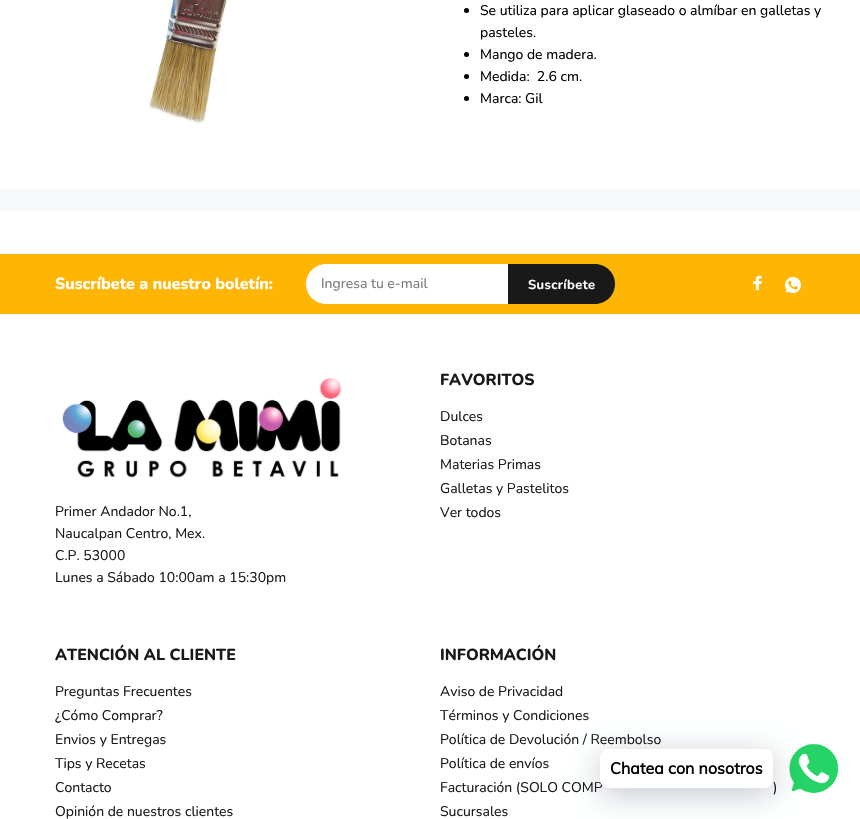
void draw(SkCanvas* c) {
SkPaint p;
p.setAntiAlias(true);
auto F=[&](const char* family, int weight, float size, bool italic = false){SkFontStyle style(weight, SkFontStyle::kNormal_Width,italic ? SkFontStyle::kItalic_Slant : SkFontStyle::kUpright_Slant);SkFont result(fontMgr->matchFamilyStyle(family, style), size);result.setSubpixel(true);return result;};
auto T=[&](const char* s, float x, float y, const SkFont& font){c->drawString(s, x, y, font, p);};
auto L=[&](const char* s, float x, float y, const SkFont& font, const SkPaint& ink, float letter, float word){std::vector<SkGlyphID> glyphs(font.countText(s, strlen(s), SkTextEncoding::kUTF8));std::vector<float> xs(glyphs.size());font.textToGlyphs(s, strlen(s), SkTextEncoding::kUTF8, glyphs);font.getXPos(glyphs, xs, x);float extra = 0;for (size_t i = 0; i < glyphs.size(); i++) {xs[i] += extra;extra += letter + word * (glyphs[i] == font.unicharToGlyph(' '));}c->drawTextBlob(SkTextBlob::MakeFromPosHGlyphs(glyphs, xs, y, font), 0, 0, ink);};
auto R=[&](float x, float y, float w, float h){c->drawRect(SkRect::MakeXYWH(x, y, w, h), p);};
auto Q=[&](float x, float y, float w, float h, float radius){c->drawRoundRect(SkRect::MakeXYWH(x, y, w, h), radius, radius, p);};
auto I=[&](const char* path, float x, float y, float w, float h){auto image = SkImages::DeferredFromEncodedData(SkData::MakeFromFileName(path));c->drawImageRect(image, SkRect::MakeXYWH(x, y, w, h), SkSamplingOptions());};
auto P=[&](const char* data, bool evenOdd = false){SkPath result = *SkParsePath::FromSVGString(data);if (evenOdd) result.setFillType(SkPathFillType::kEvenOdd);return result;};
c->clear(0xffffffff);
I("1.png",149,0,78,124);
p.setColor(0xff000000);
c->drawCircle(466.5,10.5,2.5,p);
auto f1 = F("Nunito",400,14);
T("Se utiliza para aplicar glaseado o almíbar en galletas y",480,15,f1);
T("pasteles.",480,37,f1);
c->drawCircle(466.5,54.5,2.5,p);
T("Mango de madera.",480,59,f1);
c->drawCircle(466.5,76.5,2.5,p);
T("Medida:  2.6 cm.",480,81,f1);
c->drawCircle(466.5,98.5,2.5,p);
T("Marca: Gil",480,103,f1);
p.setColor(0xfff7f8fa);
R(0,189,860,22);
p.setColor(0xffffb503);
R(0,254,860,60);
auto f2 = F("Nunito",800,16);
p.setColor(0xffffffff);
T("Suscríbete a nuestro boletín:",55,289,f2);
c->drawPath(P("M326 264h182v40h-182c-11 0-20-9-20-20c0-11 9-20 20-20z"),p);
p.setColor(0xff777777);
T("Ingresa tu e-mail",321,288,f1);
p.setColor(0xff191919);
c->drawPath(P("M508 264h87c11 0 20 9 20 20c0 11-9 20-20 20h-87z"),p);
auto f3 = F("Nunito",700,13);
p.setColor(0xffffffff);
L("Suscríbete",528,289,f3,p,.4,0);
I("2.png",753,275,10,16);
I("3.png",785,277,16,16);
p.setColor(0xff191919);
T("FAVORITOS",440,385,f2);
T("Dulces",440,421,f1);
T("Botanas",440,445,f1);
T("Materias Primas",440,469,f1);
T("Galletas y Pastelitos",440,493,f1);
T("Ver todos",440,517,f1);
I("4.png",62,377,280,101);
T("Primer Andador No.1,",55,516,f1);
T("Naucalpan Centro, Mex.",55,538,f1);
T("C.P. 53000",55,560,f1);
T("Lunes a Sábado 10:00am a 15:30pm",55,582,f1);
T("ATENCIÓN AL CLIENTE",55,660,f2);
T("Preguntas Frecuentes",55,696,f1);
T("¿Cómo Comprar?",55,720,f1);
T("Envios y Entregas",55,744,f1);
T("Tips y Recetas",55,768,f1);
T("Contacto",55,792,f1);
T("Opinión de nuestros clientes",55,816,f1);
T("INFORMACIÓN",440,660,f2);
T("Aviso de Privacidad",440,696,f1);
T("Términos y Condiciones",440,720,f1);
T("Política de Devolución / Reembolso",440,744,f1);
T("Política de envíos",440,768,f1);
T("Facturación (SOLO COMP",440,792,f1);
T(")",773,792,f1);
T("Sucursales",440,816,f1);
I("5.png",789,743,50,50);
p.setColor(0x3d00122e);
p.setMaskFilter(SkMaskFilter::MakeBlur(kNormal_SkBlurStyle, 16));
c->drawRoundRect(SkRect::MakeXYWH(600,755,173,39),8,8,p);
p.setMaskFilter(nullptr);
p.setColor(0xffffffff);
Q(600,749,173,39,8);
auto f4 = F("Muli",700,16);
p.setColor(0xff000000);
T("Chatea con nosotros",610,774,f4);
}
